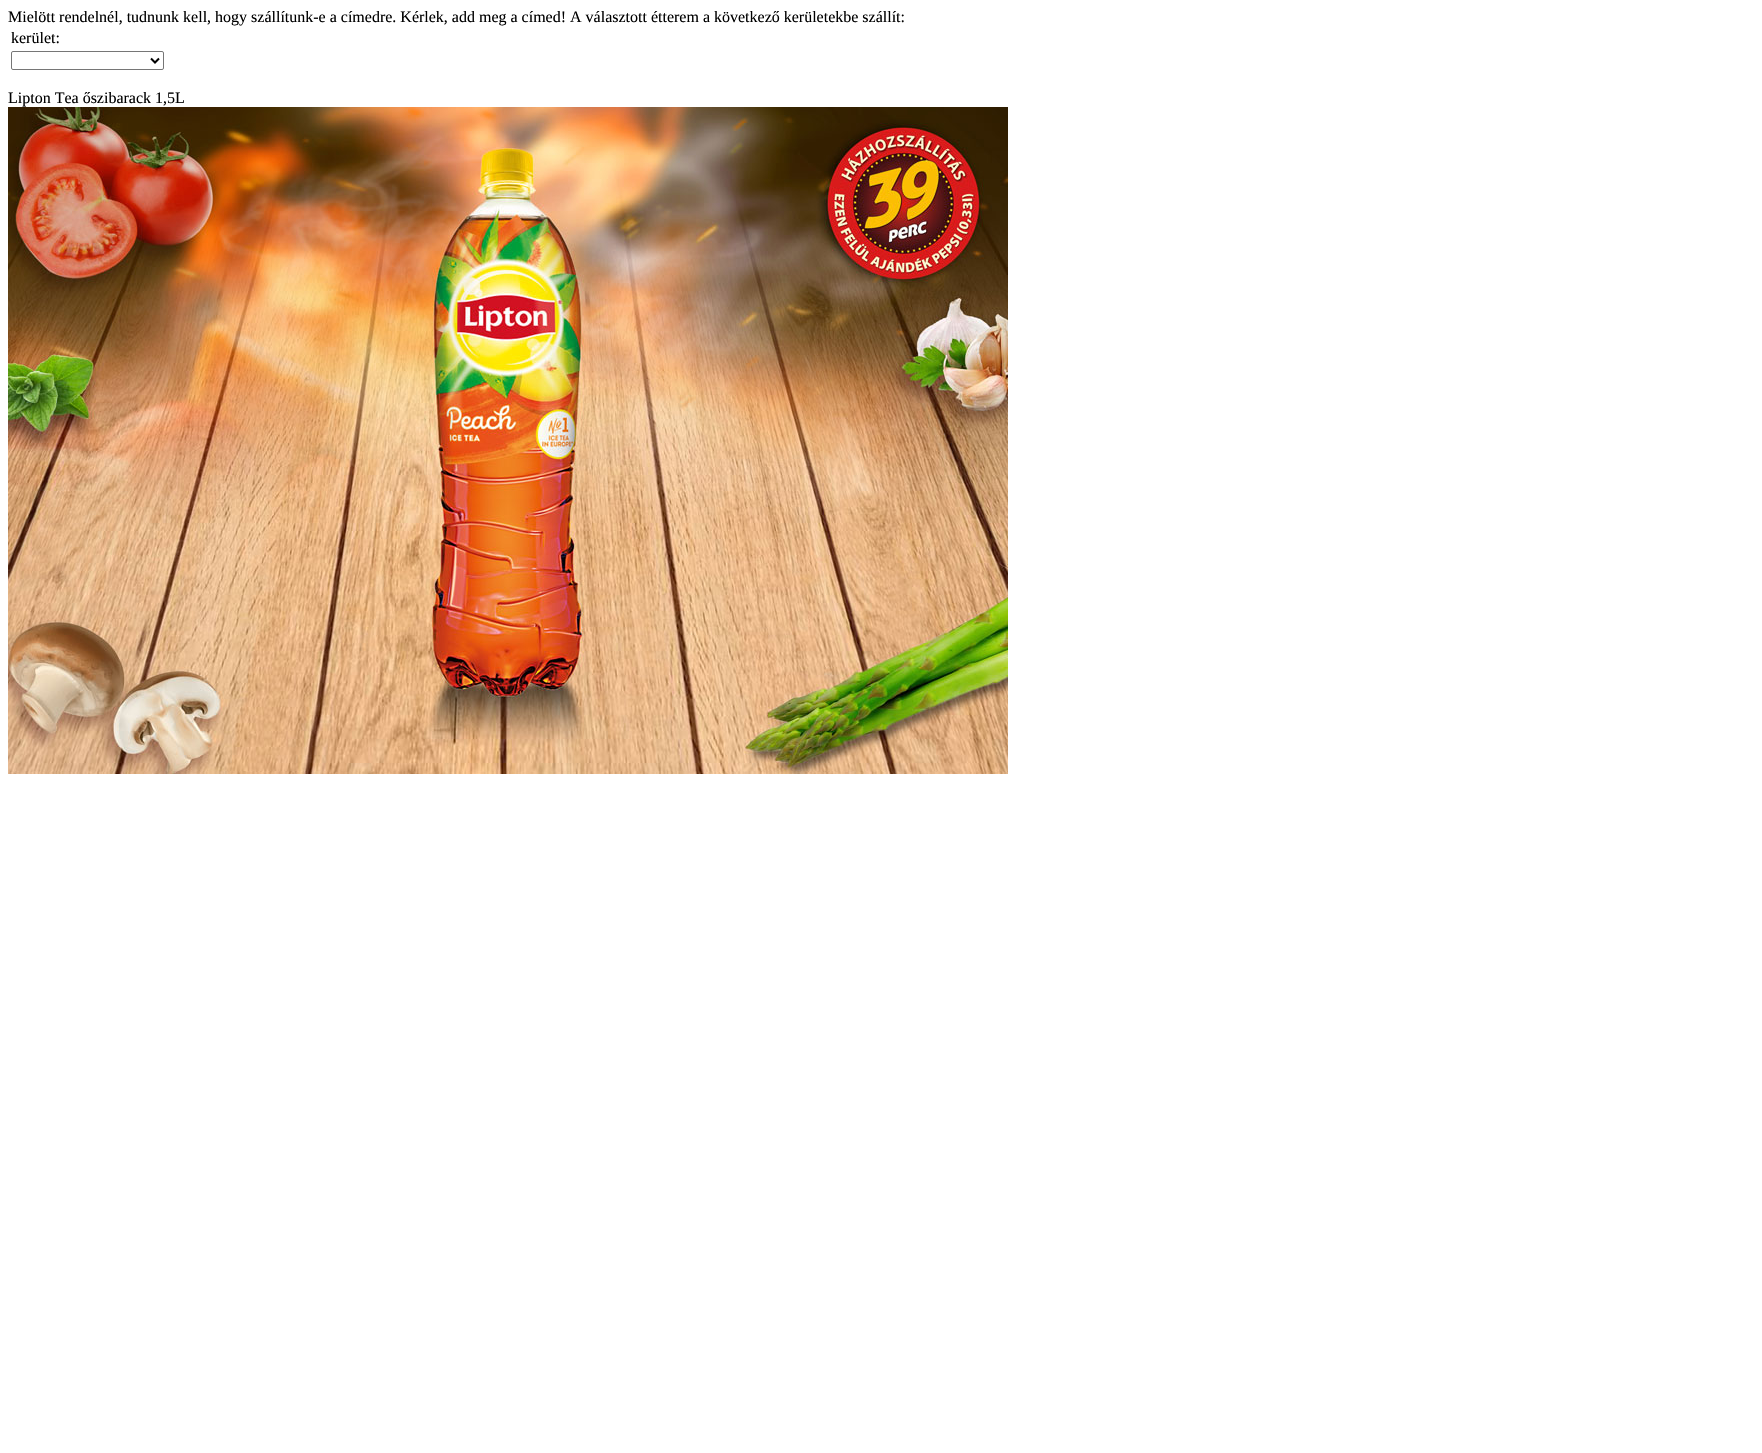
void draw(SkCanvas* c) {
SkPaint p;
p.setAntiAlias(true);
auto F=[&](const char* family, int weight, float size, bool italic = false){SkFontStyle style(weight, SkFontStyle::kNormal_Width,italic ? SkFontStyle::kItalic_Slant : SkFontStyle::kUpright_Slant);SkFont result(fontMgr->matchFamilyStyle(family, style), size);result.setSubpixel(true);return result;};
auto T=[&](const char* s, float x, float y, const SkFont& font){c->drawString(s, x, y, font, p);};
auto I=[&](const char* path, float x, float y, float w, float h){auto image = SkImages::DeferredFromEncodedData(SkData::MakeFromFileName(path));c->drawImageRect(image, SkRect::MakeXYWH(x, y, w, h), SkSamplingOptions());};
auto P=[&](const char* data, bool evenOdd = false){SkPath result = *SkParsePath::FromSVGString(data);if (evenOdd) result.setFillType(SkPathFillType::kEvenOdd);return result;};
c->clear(0xffffffff);
auto f1 = F("Liberation Serif",400,16);
p.setColor(0xff000000);
T("Mielött rendelnél, tudnunk kell, hogy szállítunk-e a címedre. Kérlek, add meg a címed! A választott étterem a következő kerületekbe szállít:",8,22,f1);
T("kerület:",11,43,f1);
p.setStroke(true);
p.setStrokeWidth(1);
p.setColor(0xff767676);
c->drawRoundRect(SkRect::MakeXYWH(11.5,51.5,152,18),1.5,1.5,p);
p.setStrokeWidth(2);
p.setColor(0xff000000);
c->drawPath(P("M151 58.5l4 4l4-4"),p);
p.setStroke(false);
T("Lipton Tea őszibarack 1,5L",8,103,f1);
I("1.png",8,107,1000,667);
}
